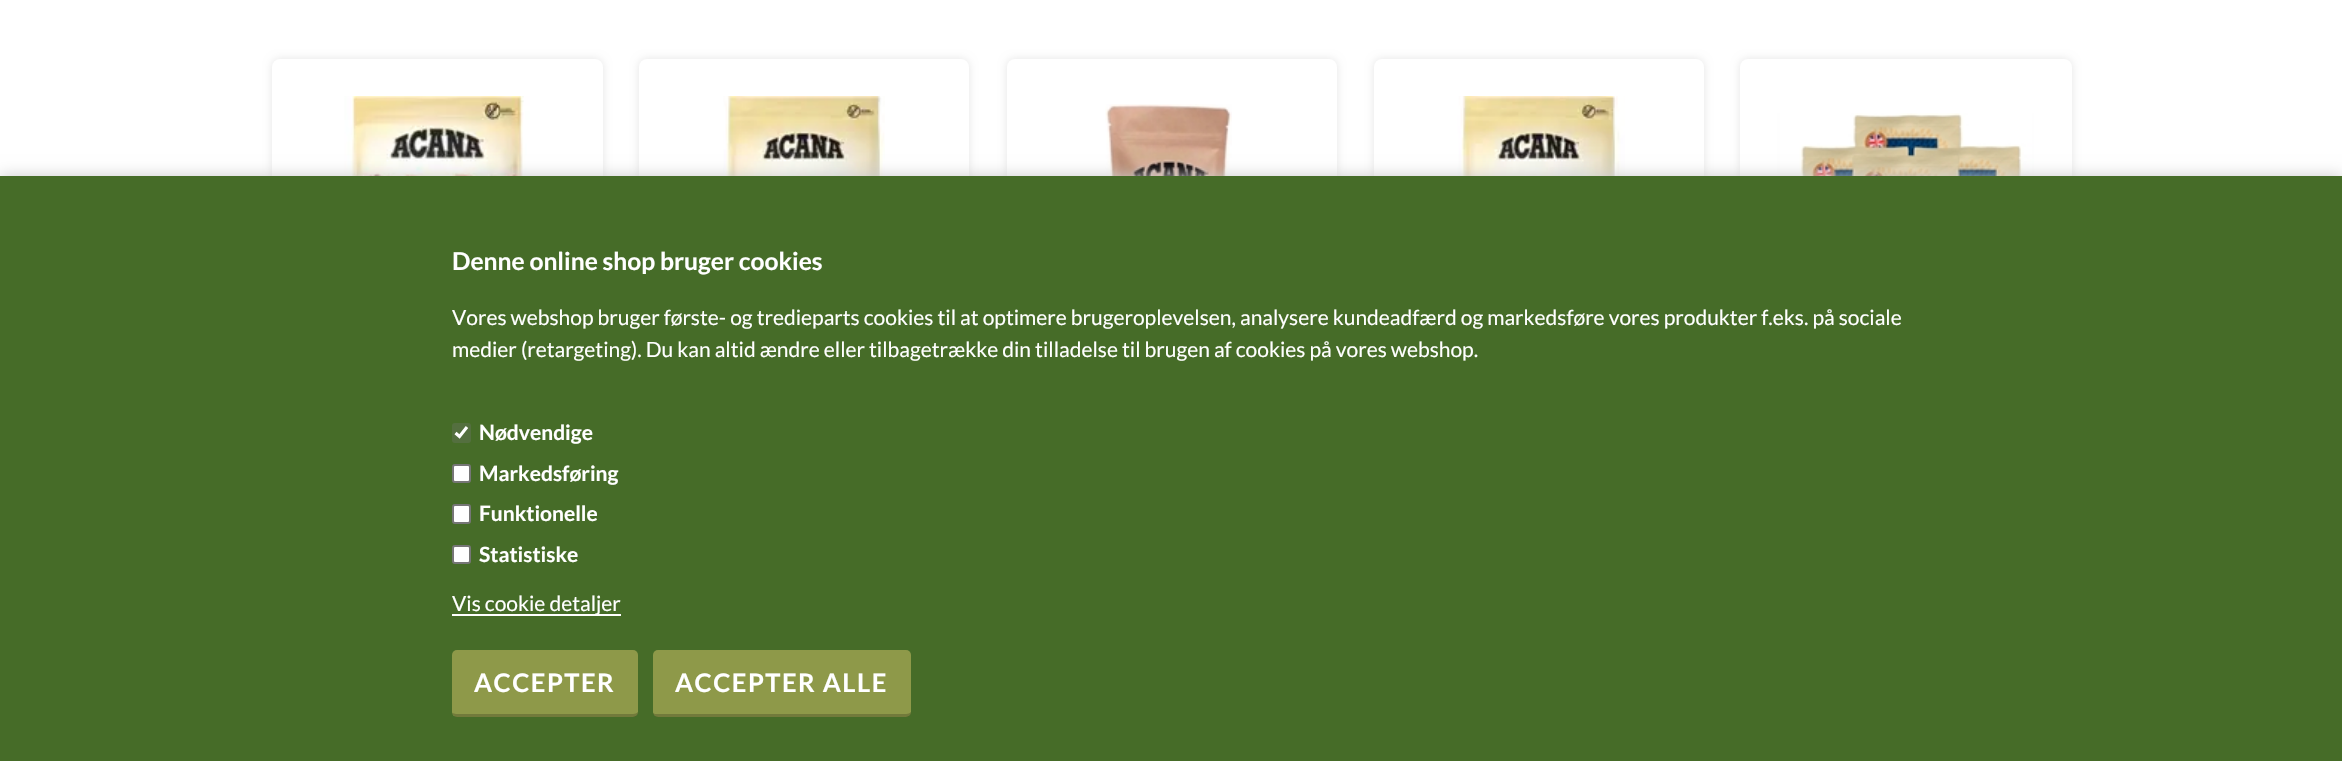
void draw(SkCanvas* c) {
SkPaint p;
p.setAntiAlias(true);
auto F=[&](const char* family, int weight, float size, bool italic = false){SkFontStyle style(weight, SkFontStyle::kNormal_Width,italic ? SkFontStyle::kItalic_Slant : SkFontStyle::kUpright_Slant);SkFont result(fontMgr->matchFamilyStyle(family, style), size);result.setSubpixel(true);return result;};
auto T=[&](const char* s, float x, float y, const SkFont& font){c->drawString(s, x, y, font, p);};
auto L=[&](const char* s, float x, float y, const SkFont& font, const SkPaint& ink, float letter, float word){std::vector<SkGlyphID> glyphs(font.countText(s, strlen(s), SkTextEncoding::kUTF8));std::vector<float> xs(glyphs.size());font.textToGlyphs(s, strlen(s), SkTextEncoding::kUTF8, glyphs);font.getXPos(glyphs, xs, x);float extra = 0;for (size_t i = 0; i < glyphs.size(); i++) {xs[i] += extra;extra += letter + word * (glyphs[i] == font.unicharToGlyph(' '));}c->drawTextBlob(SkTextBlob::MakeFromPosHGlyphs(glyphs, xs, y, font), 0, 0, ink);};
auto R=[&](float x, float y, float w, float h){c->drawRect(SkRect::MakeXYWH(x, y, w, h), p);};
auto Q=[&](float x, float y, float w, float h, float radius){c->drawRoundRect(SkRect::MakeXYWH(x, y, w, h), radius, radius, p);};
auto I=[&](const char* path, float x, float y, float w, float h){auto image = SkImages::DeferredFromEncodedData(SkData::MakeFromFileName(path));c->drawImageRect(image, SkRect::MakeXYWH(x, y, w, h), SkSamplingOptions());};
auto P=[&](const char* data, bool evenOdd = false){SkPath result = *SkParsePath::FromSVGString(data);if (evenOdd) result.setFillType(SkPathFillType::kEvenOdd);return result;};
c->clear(0xffffffff);
p.setColor(0x1a000000);
p.setMaskFilter(SkMaskFilter::MakeBlur(kNormal_SkBlurStyle, 4.5));
c->drawRoundRect(SkRect::MakeXYWH(272,59,331,471),8,8,p);
p.setMaskFilter(nullptr);
p.setColor(0xffffffff);
Q(272,59,331,471,8);
I("1.png",344,96,186,80);
p.setColor(0x1a000000);
p.setMaskFilter(SkMaskFilter::MakeBlur(kNormal_SkBlurStyle, 4.5));
c->drawRoundRect(SkRect::MakeXYWH(639,59,330,471),8,8,p);
p.setMaskFilter(nullptr);
p.setColor(0xffffffff);
Q(639,59,330,471,8);
I("2.png",723,96,162,80);
p.setColor(0x1a000000);
p.setMaskFilter(SkMaskFilter::MakeBlur(kNormal_SkBlurStyle, 4.5));
c->drawRoundRect(SkRect::MakeXYWH(1007,59,330,471),8,8,p);
p.setMaskFilter(nullptr);
p.setColor(0xffffffff);
Q(1007,59,330,471,8);
I("3.png",1105,104,127,72);
p.setColor(0x1a000000);
p.setMaskFilter(SkMaskFilter::MakeBlur(kNormal_SkBlurStyle, 4.5));
c->drawRoundRect(SkRect::MakeXYWH(1374,59,330,471),8,8,p);
p.setMaskFilter(nullptr);
p.setColor(0xffffffff);
Q(1374,59,330,471,8);
I("4.png",1457,96,168,80);
p.setColor(0x1a000000);
p.setMaskFilter(SkMaskFilter::MakeBlur(kNormal_SkBlurStyle, 4.5));
c->drawRoundRect(SkRect::MakeXYWH(1740,59,332,495),8,8,p);
p.setMaskFilter(nullptr);
p.setColor(0xffffffff);
Q(1740,59,332,495,8);
I("5.png",1777,113,257,63);
p.setColor(0xffcccccc);
p.setMaskFilter(SkMaskFilter::MakeBlur(kNormal_SkBlurStyle, 7.5));
c->drawRect(SkRect::MakeXYWH(0,176,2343,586),p);
p.setMaskFilter(nullptr);
p.setColor(0xff466c28);
R(0,176,2342,585);
auto f1 = F("Lato",700,24.6);
p.setColor(0xffffffff);
T("Denne online shop bruger cookies",452,270,f1);
auto f2 = F("Lato",400,21);
T("Vores webshop bruger første- og tredieparts cookies til at optimere brugeroplevelsen, analysere kundeadfærd og markedsføre vores produkter f.eks. på sociale",452,325,f2);
T("medier (retargeting). Du kan altid ændre eller tilbagetrække din tilladelse til brugen af cookies på vores webshop.",452,357,f2);
p.setColor(0xff546f3f);
Q(452,423,19,20,3);
p.setStroke(true);
p.setStrokeWidth(3.1);
p.setColor(0xffffffff);
c->drawPath(P("M455.5 433l4 3.5l7.5-9.5"),p);
auto f3 = F("Lato",700,21);
p.setStroke(false);
T("Nødvendige",479,440,f3);
c->drawRoundRect(SkRect::MakeXYWH(453,465,17,17),2,2,p);
p.setStroke(true);
p.setStrokeWidth(2);
p.setColor(0xff767676);
c->drawRoundRect(SkRect::MakeXYWH(453,465,17,17),2,2,p);
p.setStroke(false);
p.setColor(0xffffffff);
T("Markedsføring",479,481,f3);
c->drawRoundRect(SkRect::MakeXYWH(453,505,17,18),2,2,p);
p.setStroke(true);
p.setColor(0xff767676);
c->drawRoundRect(SkRect::MakeXYWH(453,505,17,18),2,2,p);
p.setStroke(false);
p.setColor(0xffffffff);
T("Funktionelle",479,521,f3);
c->drawRoundRect(SkRect::MakeXYWH(453,546,17,17),2,2,p);
p.setStroke(true);
p.setColor(0xff767676);
c->drawRoundRect(SkRect::MakeXYWH(453,546,17,17),2,2,p);
p.setStroke(false);
p.setColor(0xffffffff);
T("Statistiske",479,562,f3);
R(452,614,169,2);
T("Vis cookie detaljer",452,611,f2);
p.setColor(0xff8e9949);
Q(452,650,186,67,5);
p.setColor(0x33000000);
c->drawPath(P("M452 713c1 2 3 4 5 4h176c3 0 5-2 5-5c-1 1-3 2-5 2h-177z"),p);
auto f4 = F("Lato",700,25.5);
p.setColor(0xffffffff);
L("ACCEPTER",474,692,f4,p,1.5,0);
p.setColor(0xff8e9949);
Q(653,650,258,67,5);
p.setColor(0x33000000);
c->drawPath(P("M653 713c0 2 3 4 5 4h248c3 0 5-2 5-5c-1 1-3 2-5 2h-249c-1 0-3 0-4-1z"),p);
p.setColor(0xffffffff);
L("ACCEPTER ALLE",675,692,f4,p,1.5,0);
}
